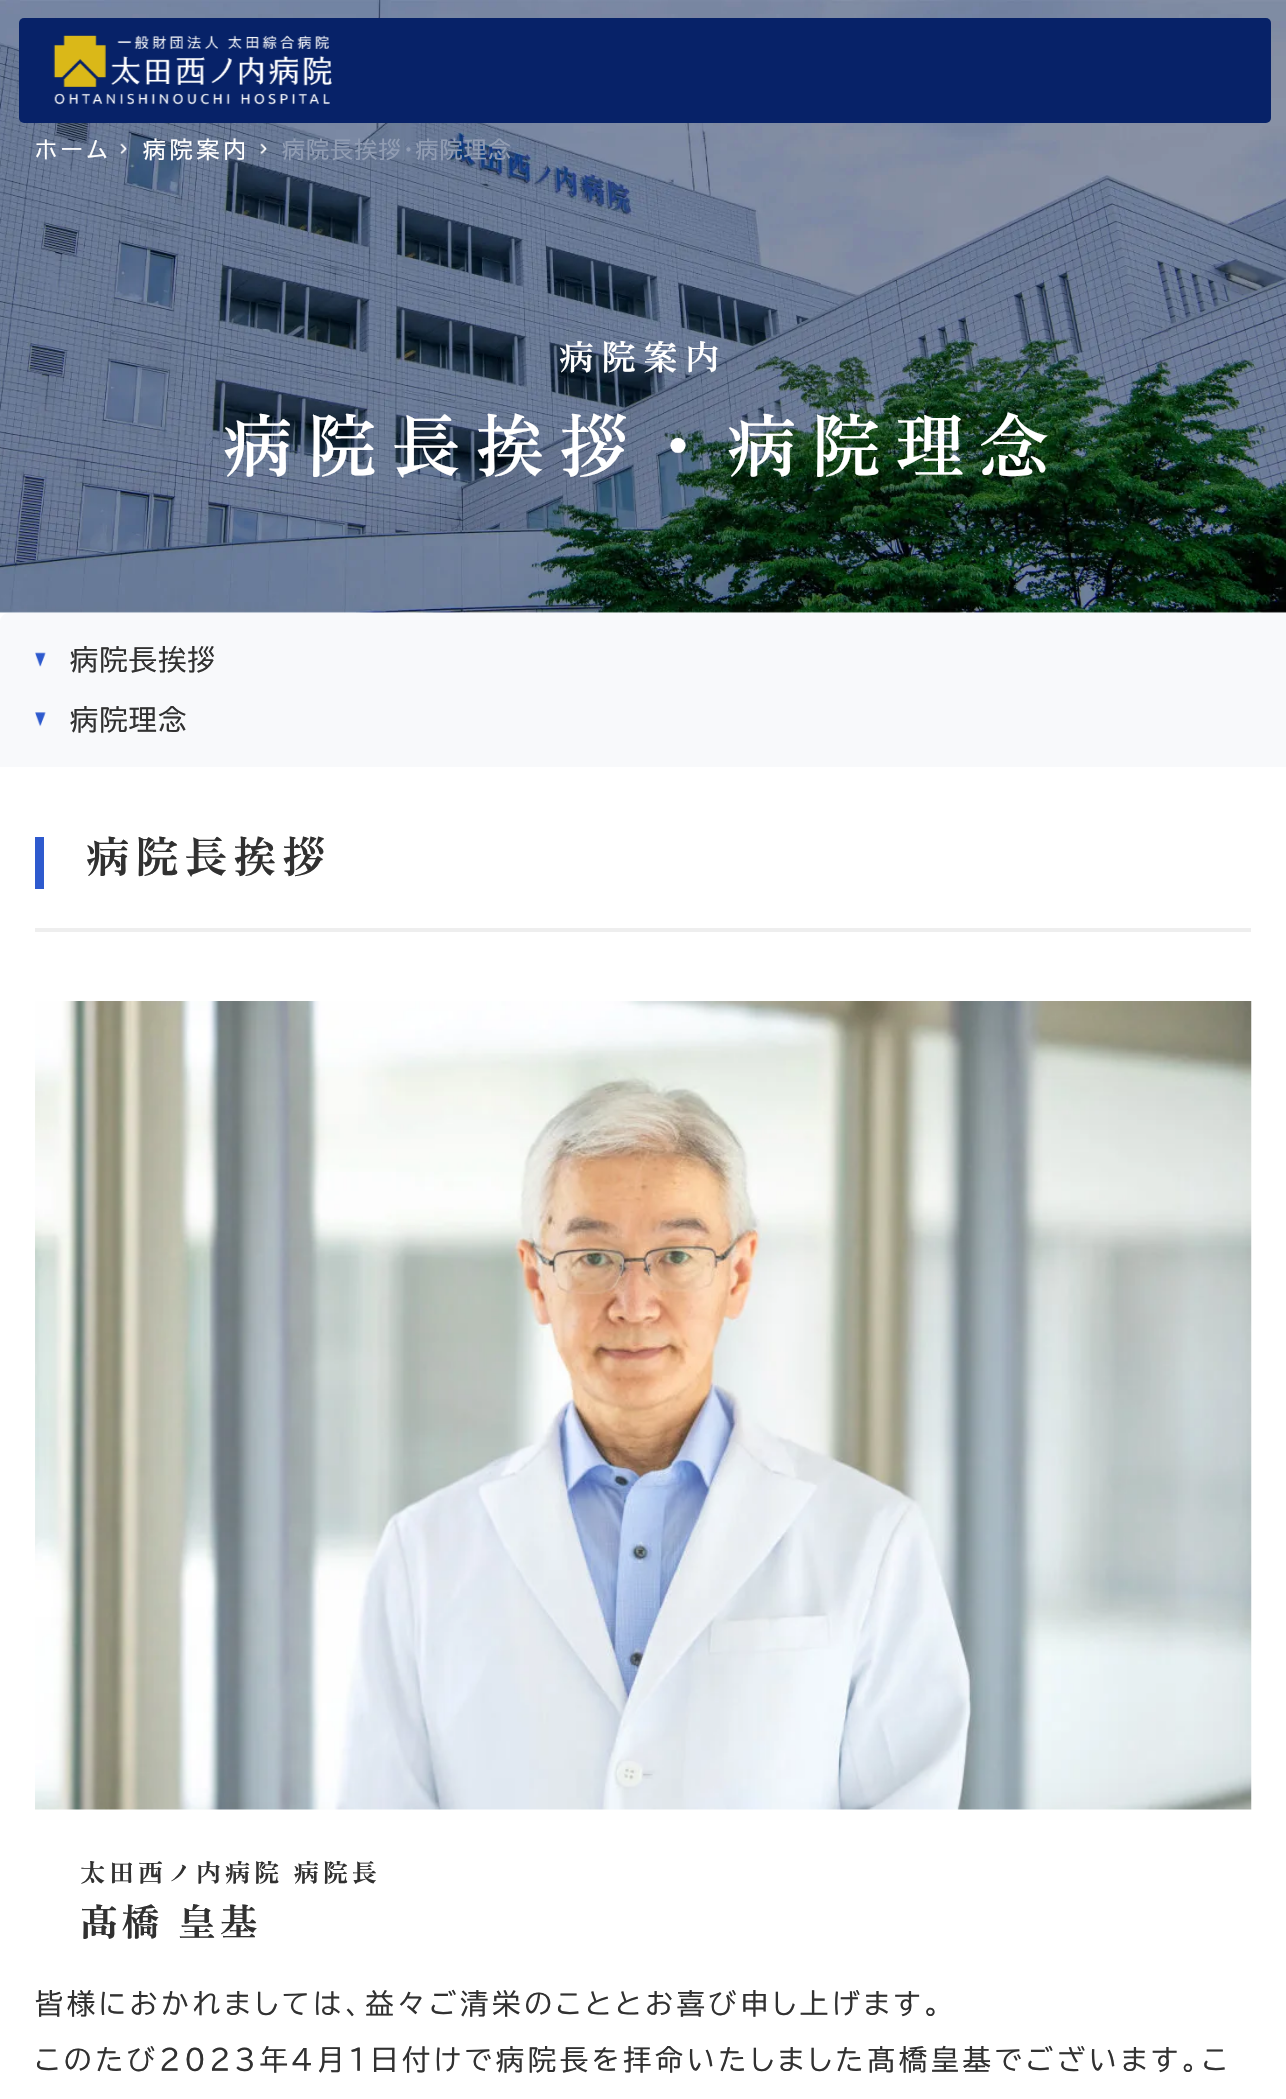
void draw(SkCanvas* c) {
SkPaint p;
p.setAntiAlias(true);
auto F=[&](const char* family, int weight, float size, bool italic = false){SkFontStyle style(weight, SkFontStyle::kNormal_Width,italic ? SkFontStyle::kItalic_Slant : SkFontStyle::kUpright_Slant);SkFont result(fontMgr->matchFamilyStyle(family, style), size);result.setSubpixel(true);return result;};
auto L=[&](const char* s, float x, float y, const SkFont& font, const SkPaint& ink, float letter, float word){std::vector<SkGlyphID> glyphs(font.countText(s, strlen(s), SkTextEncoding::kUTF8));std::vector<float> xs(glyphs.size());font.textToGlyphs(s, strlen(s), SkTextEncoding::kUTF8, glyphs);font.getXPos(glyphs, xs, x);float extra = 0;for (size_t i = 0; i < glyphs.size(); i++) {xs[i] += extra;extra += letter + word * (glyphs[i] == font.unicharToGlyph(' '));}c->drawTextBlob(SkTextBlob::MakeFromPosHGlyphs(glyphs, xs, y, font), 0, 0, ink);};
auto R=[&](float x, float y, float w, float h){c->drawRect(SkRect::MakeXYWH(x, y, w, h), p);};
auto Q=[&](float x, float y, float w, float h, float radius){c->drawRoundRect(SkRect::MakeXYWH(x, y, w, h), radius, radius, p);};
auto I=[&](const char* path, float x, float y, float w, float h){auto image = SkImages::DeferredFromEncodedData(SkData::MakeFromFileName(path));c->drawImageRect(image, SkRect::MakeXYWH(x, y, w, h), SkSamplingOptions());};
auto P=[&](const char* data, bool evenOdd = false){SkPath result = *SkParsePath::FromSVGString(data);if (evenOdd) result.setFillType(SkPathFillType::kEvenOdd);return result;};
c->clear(0xffffffff);
I("2.png",0,0,1286,613);
p.setColor(0xff072268);
Q(19,18,1252,105,5);
I("1.png",53,35,279,70);
auto f1 = F("BIZ UDPGothic",400,22.75);
p.setColor(0xffffffff);
L("ホーム",35,158,f1,p,4,0);
I("3.png",120,143,7,11);
L("病院案内",143,158,f1,p,4,0);
I("4.png",260,143,7,11);
p.setColor(0xff919db3);
L("病院長挨拶・病院理念",282,158,f1,p,1.4,0);
auto f2 = F("Zen Old Mincho",600,35);
p.setColor(0xffffffff);
L("病院案内",559,370,f2,p,7,0);
auto f3 = F("Zen Old Mincho",600,70);
L("病院長挨拶・病院理念",223,472,f3,p,14,0);
p.setColor(0xfff8f9fb);
c->drawPath(P("M9 613h1277v154h-1286v-145c0-5 4-9 9-9z"),p);
I("5.png",35,652,11,15);
auto f4 = F("BIZ UDPGothic",400,28);
p.setColor(0xff313131);
L("病院長挨拶",70,670,f4,p,1.4,0);
I("6.png",35,712,11,15);
L("病院理念",70,730,f4,p,1.4,0);
p.setColor(0xffeeeeee);
R(35,928,1216,4);
p.setColor(0xff2e5ace);
R(35,837,9,52);
auto f5 = F("Zen Old Mincho",700,43.75);
p.setColor(0xff313131);
L("病院長挨拶",86,873,f5,p,5.25,0);
I("7.png",35,1001,1217,809);
auto f6 = F("Zen Old Mincho",700,25.25);
L("太田西ノ内病院 病院長",80,1882,f6,p,3.75,0);
auto f7 = F("Zen Old Mincho",700,38);
L("髙橋 皇基",80,1936,f7,p,3.75,0);
L("皆様におかれましては、益々ご清栄のこととお喜び申し上げます。",35,2014,f4,p,3.9,0);
L("このたび2023年4月1日付けで病院長を拝命いたしました髙橋皇基でございます。こ",35,2070,f4,p,3.9,0);
}
